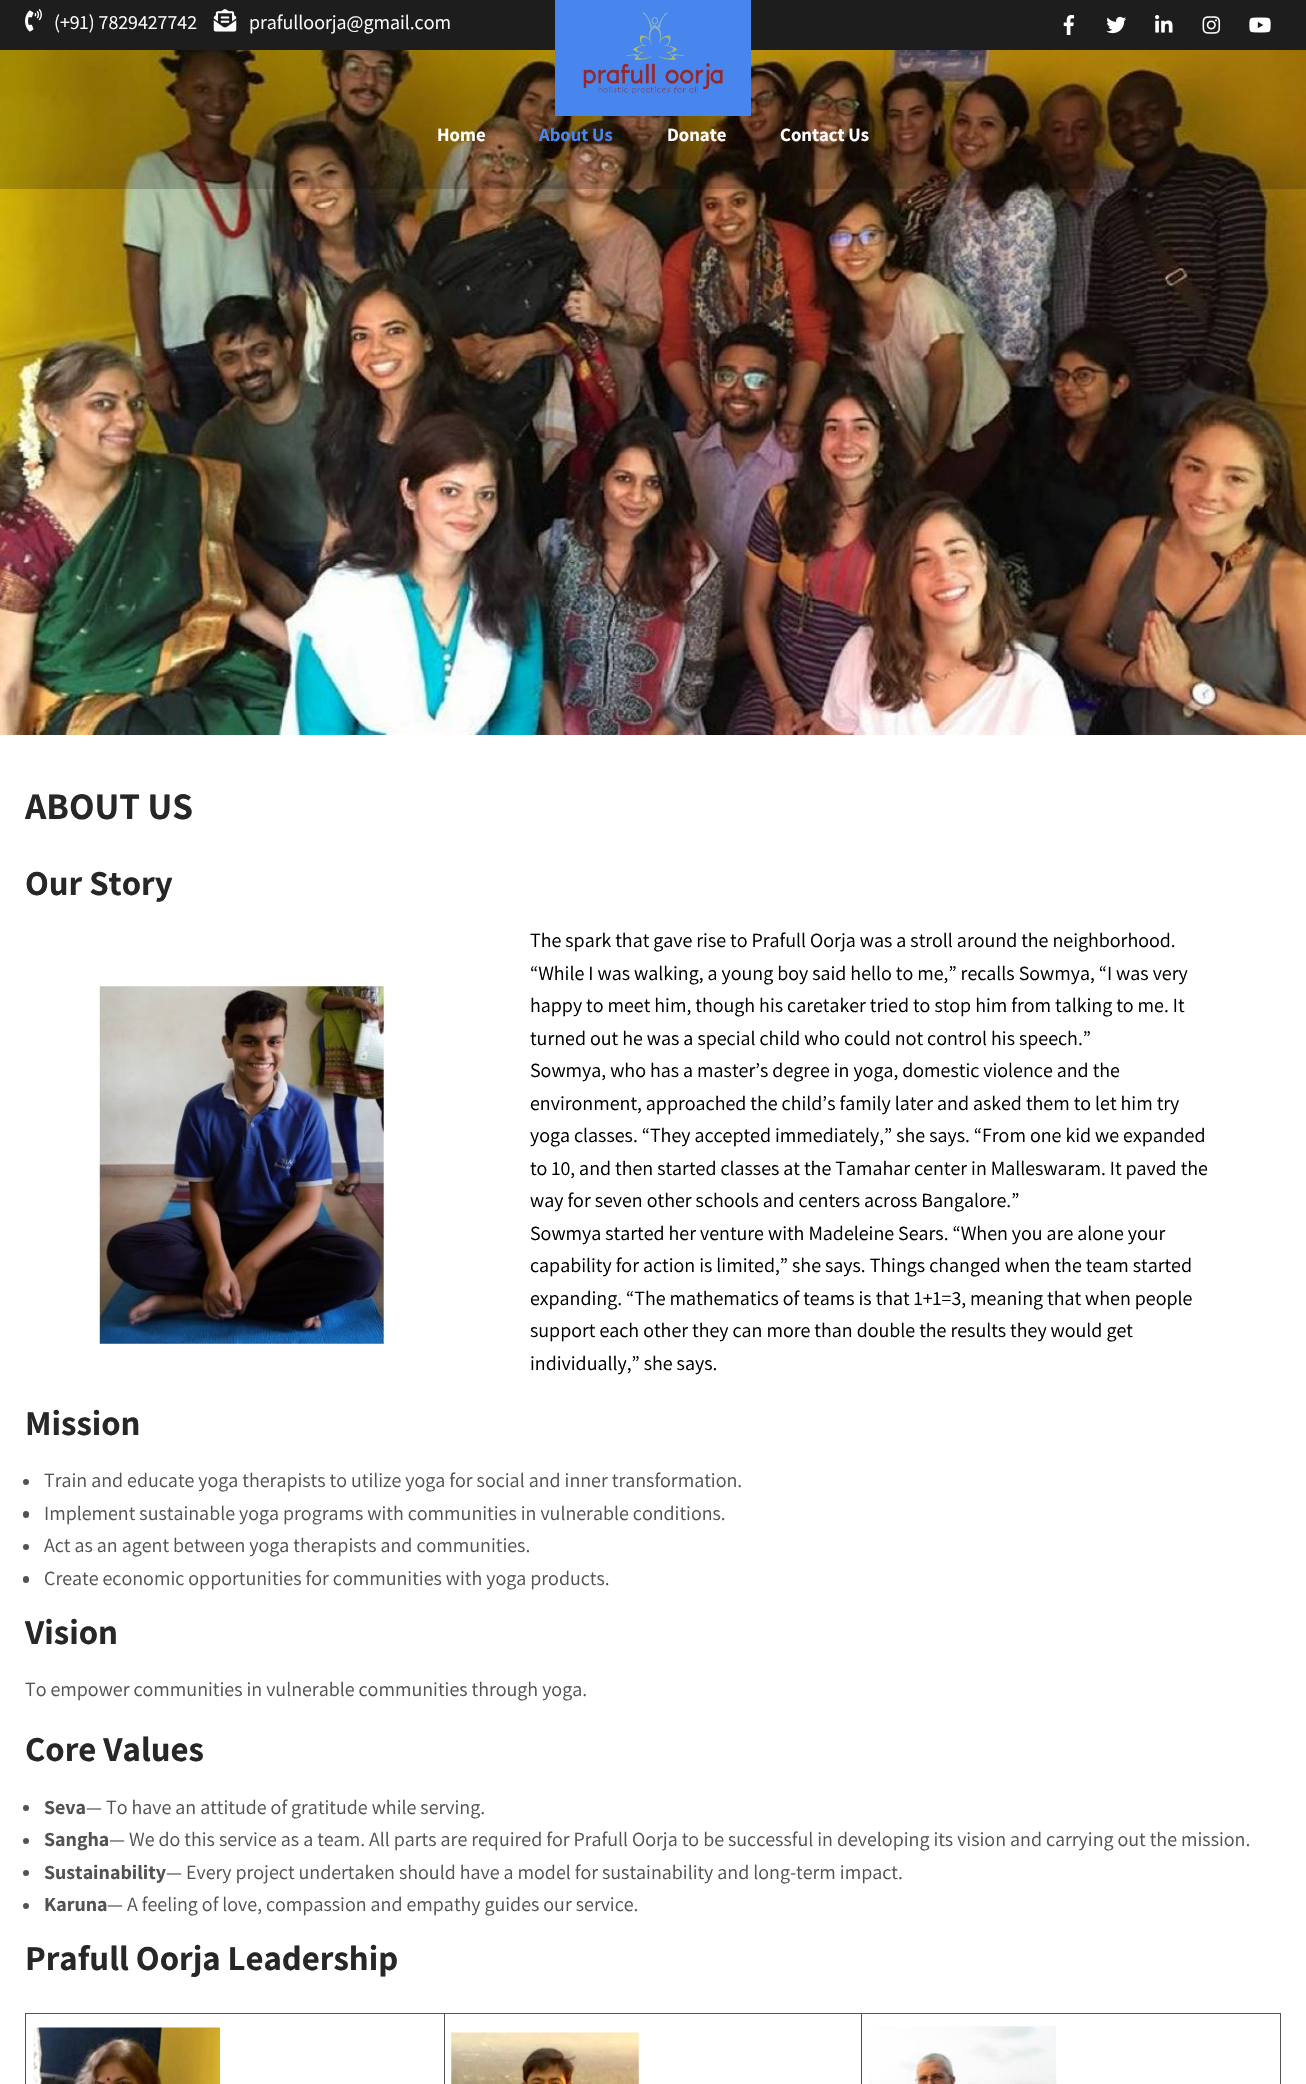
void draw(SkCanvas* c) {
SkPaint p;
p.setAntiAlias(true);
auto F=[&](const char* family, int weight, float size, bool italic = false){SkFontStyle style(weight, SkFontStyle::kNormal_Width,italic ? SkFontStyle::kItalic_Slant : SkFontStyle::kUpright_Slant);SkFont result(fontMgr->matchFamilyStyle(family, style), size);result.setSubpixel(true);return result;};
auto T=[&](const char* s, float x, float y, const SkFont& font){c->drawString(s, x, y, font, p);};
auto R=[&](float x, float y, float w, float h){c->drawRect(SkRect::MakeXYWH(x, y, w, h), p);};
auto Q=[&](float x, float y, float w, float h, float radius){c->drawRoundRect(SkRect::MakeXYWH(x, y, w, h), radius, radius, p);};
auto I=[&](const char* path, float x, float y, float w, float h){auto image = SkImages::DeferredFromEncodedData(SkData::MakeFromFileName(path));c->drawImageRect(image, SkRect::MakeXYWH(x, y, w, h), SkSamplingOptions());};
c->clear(0xffffffff);
p.setColor(0xff1d1d1d);
R(0,0,1306,50);
I("1.png",25,9,17,23);
auto f1 = F("Assistant",400,20);
p.setColor(0xffffffff);
T("(+91) 7829427742",54,29,f1);
I("2.png",213,9,24,23);
T("prafulloorja@gmail.com",249,29,f1);
I("3.png",1063,15,12,20);
I("4.png",1106,16,21,18);
I("5.png",1155,15,18,18);
I("6.png",1202,16,19,18);
I("7.png",1249,17,22,16);
I("9.png",0,50,1306,685);
p.setColor(0x33000000);
R(0,50,1306,139);
p.setColor(0xff4885ed);
R(555,0,196,116);
I("8.png",583,12,140,82);
auto f2 = F("Assistant",700,18.75);
p.setColor(0xffffffff);
T("Home",437,141,f2);
p.setColor(0xff4885ed);
T("About Us",539,141,f2);
p.setColor(0xffffffff);
T("Donate",667,141,f2);
T("Contact Us",780,141,f2);
auto f3 = F("Assistant",700,37.5);
p.setColor(0xff272727);
T("ABOUT US",25,819,f3);
auto f4 = F("Assistant",700,35);
T("Our Story",25,895,f4);
I("10.png",97,986,289,358);
p.setColor(0xff000000);
T("The spark that gave rise to Prafull Oorja was a stroll around the neighborhood.",530,947,f1);
T("“While I was walking, a young boy said hello to me,” recalls Sowmya, “I was very",530,980,f1);
T("happy to meet him, though his caretaker tried to stop him from talking to me. It",530,1012,f1);
T("turned out he was a special child who could not control his speech.”",530,1045,f1);
T("Sowmya, who has a master’s degree in yoga, domestic violence and the",530,1077,f1);
T("environment, approached the child’s family later and asked them to let him try",530,1110,f1);
T("yoga classes. “They accepted immediately,” she says. “From one kid we expanded",530,1142,f1);
T("to 10, and then started classes at the Tamahar center in Malleswaram. It paved the",530,1175,f1);
T("way for seven other schools and centers across Bangalore.”",530,1207,f1);
T("Sowmya started her venture with Madeleine Sears. “When you are alone your",530,1240,f1);
T("capability for action is limited,” she says. Things changed when the team started",530,1272,f1);
T("expanding. “The mathematics of teams is that 1+1=3, meaning that when people",530,1305,f1);
T("support each other they can more than double the results they would get",530,1337,f1);
T("individually,” she says.",530,1370,f1);
p.setColor(0xff272727);
T("Mission",25,1435,f4);
p.setColor(0xff535353);
c->drawCircle(26,1482,3,p);
T("Train and educate yoga therapists to utilize yoga for social and inner transformation.",44,1487,f1);
Q(23,1511,6,7,3);
T("Implement sustainable yoga programs with communities in vulnerable conditions.",44,1520,f1);
c->drawCircle(26,1547,3,p);
T("Act as an agent between yoga therapists and communities.",44,1552,f1);
Q(23,1576,6,7,3);
T("Create economic opportunities for communities with yoga products.",44,1585,f1);
p.setColor(0xff272727);
T("Vision",25,1644,f4);
p.setColor(0xff535353);
T("To empower communities in vulnerable communities through yoga.",25,1696,f1);
p.setColor(0xff272727);
T("Core Values",25,1761,f4);
p.setColor(0xff535353);
c->drawCircle(26,1808,3,p);
auto f5 = F("Assistant",700,20);
T("Seva",44,1814,f5);
T("— To have an attitude of gratitude while serving.",86,1814,f1);
c->drawCircle(26,1841,3,p);
T("Sangha",44,1846,f5);
T("— We do this service as a team. All parts are required for Prafull Oorja to be successful in developing its vision and carrying out the mission.",109,1846,f1);
c->drawCircle(26,1873,3,p);
T("Sustainability",44,1879,f5);
T("— Every project undertaken should have a model for sustainability and long-term impact.",166,1879,f1);
c->drawCircle(26,1906,3,p);
T("Karuna",44,1911,f5);
T("— A feeling of love, compassion and empathy guides our service.",107,1911,f1);
p.setColor(0xff272727);
T("Prafull Oorja Leadership",25,1970,f4);
p.setColor(0xff535353);
R(861,2013,420,1);
R(861,2013,1,71);
R(444,2013,419,1);
R(444,2013,1,71);
R(25,2013,420,1);
R(25,2013,1,71);
I("11.png",32,2027,188,57);
I("12.png",451,2032,188,52);
R(1280,2013,1,71);
I("13.png",869,2026,188,58);
}
